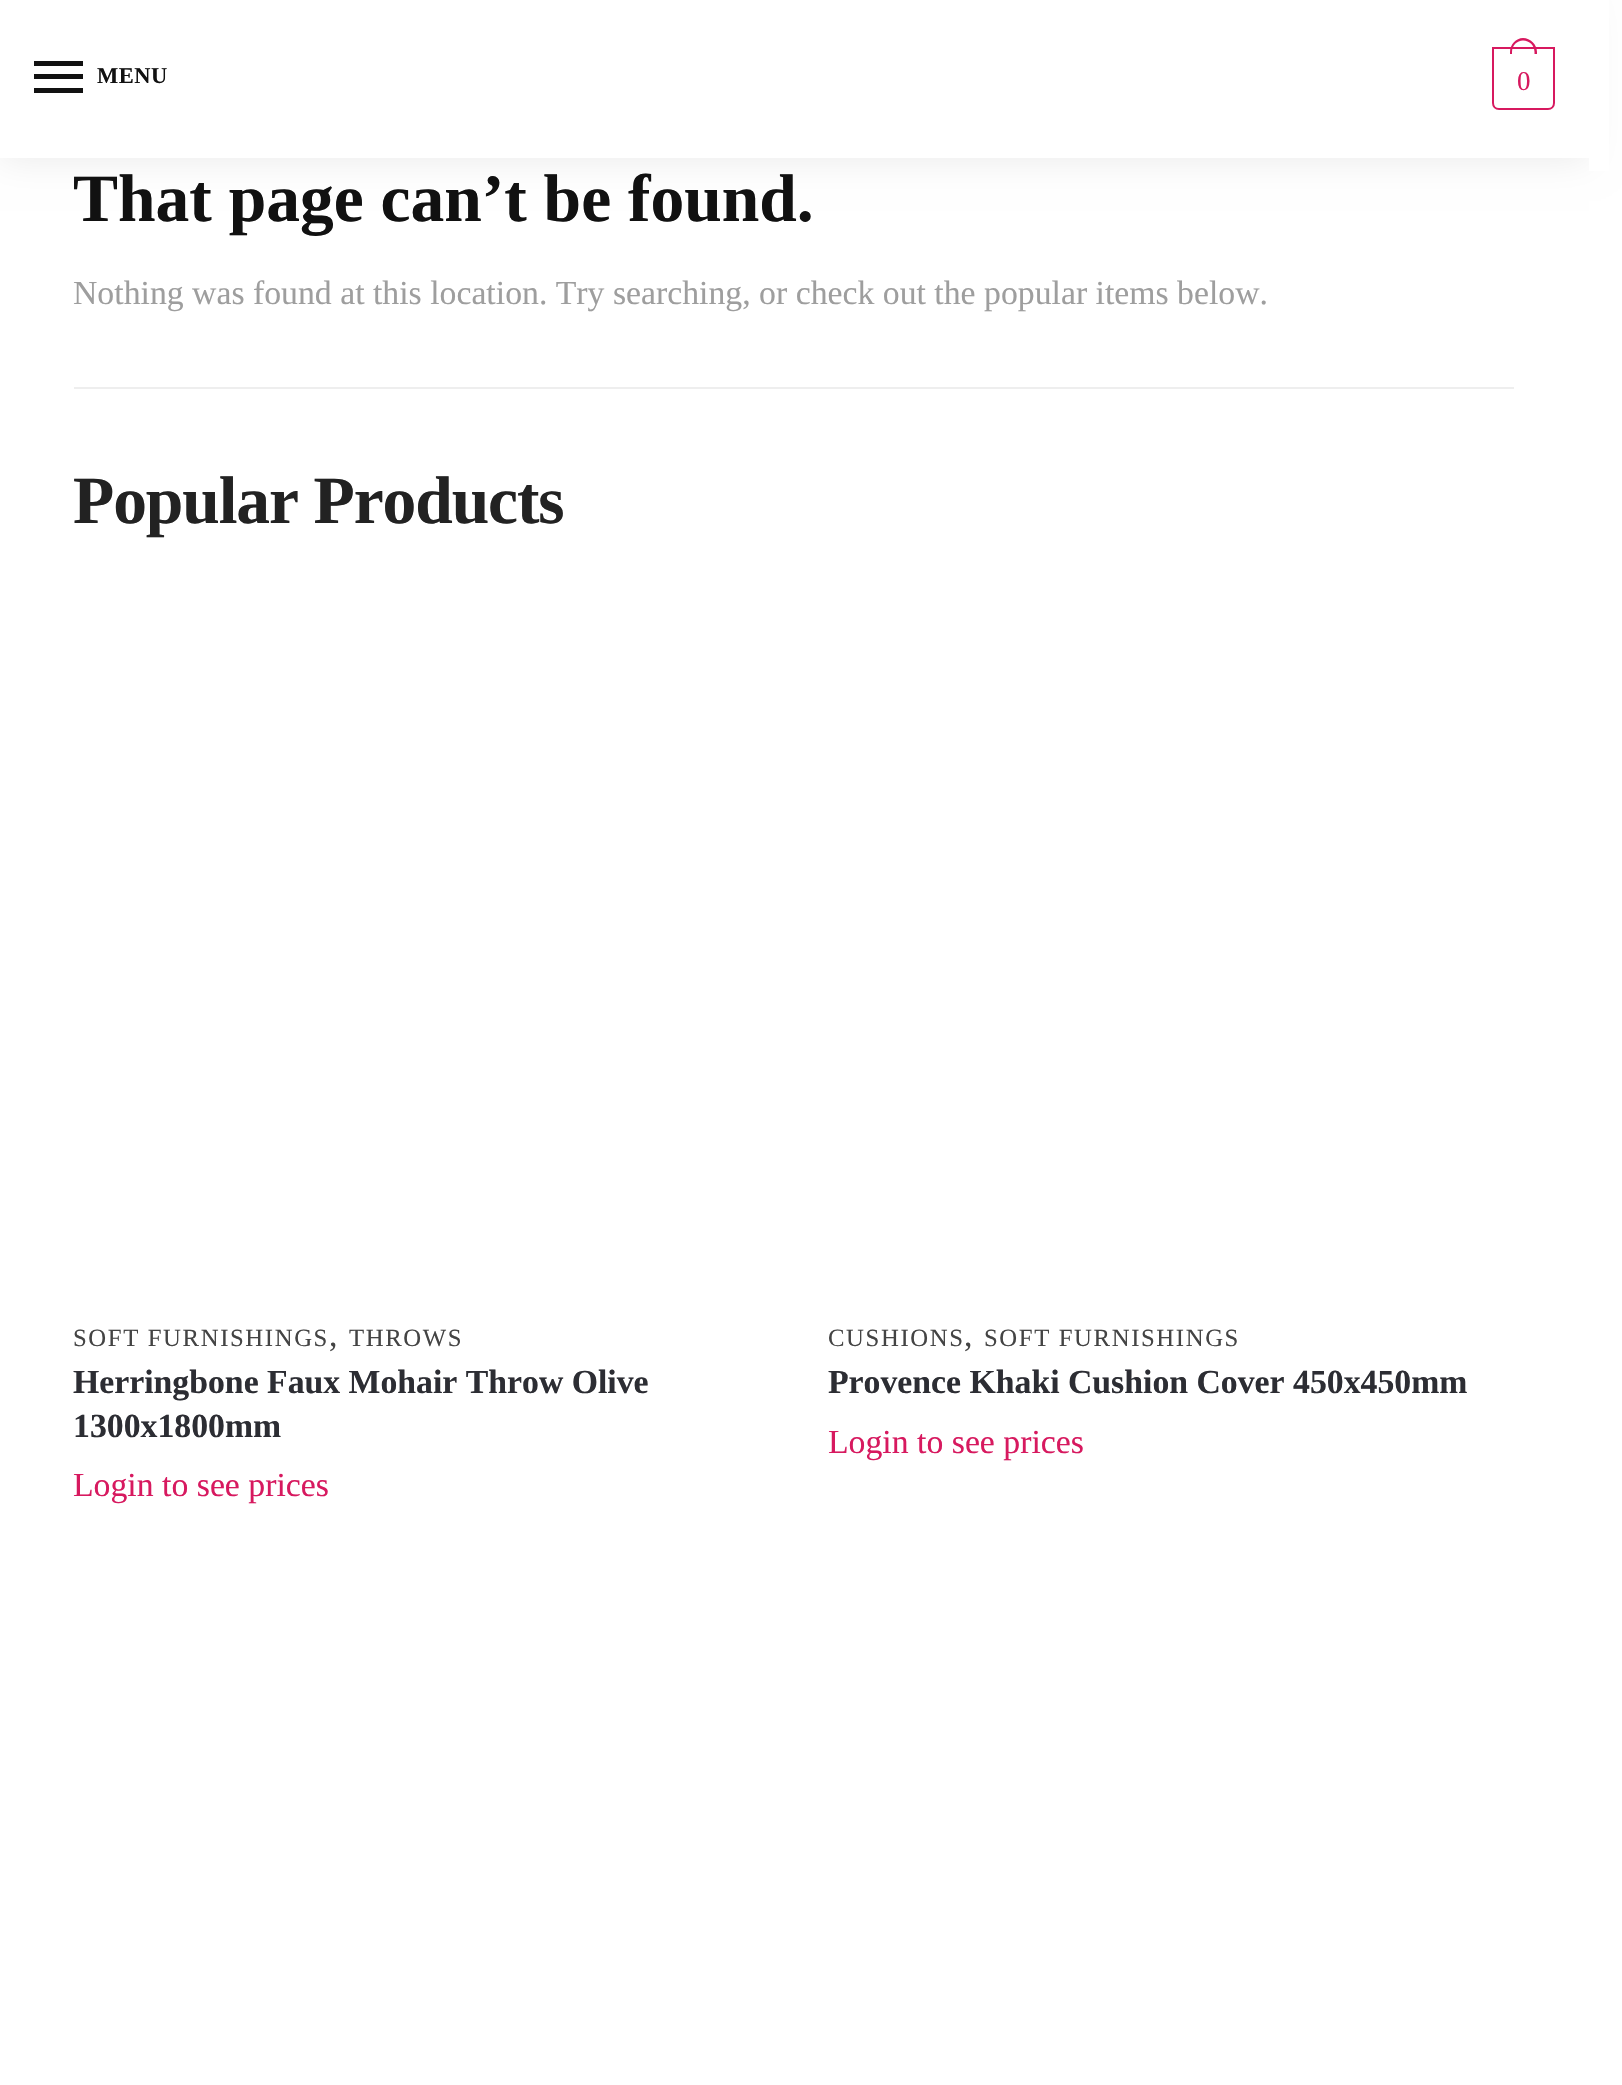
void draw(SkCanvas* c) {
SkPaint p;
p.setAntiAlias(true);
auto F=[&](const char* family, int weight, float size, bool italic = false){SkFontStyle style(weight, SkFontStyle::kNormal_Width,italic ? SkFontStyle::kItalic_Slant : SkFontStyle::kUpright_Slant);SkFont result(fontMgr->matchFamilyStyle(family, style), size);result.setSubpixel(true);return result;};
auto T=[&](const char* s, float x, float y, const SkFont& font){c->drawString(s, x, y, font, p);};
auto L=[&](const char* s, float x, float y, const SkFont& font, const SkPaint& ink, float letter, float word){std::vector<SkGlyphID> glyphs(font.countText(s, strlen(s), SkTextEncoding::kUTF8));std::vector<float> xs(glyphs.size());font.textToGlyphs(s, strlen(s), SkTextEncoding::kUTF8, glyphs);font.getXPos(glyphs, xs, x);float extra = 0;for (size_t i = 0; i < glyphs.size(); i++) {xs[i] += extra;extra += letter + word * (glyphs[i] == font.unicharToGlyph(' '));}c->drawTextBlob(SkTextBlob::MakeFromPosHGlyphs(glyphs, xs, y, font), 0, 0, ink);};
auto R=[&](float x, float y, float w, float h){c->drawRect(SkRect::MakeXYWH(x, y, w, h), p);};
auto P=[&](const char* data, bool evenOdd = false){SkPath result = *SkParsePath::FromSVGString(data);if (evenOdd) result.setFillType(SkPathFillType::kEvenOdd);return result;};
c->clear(0xffffffff);
p.setColor(0x14000000);
p.setMaskFilter(SkMaskFilter::MakeBlur(kNormal_SkBlurStyle, 17));
c->drawRect(SkRect::MakeXYWH(0,2,1589,158),p);
p.setMaskFilter(nullptr);
p.setColor(0xffffffff);
R(0,0,1589,158);
p.setColor(0xff111111);
R(34,61,49,5);
R(34,74,49,5);
auto f1 = F("Liberation Serif",700,22.5);
L("MENU",97,83,f1,p,.5,0);
R(34,88,49,5);
p.setStroke(true);
p.setStrokeWidth(2);
p.setColor(0xffd7195f);
c->drawPath(P("M1493 48h61v55c0 3.5-2.5 6-6 6h-49c-3.5 0-6-2.5-6-6z"),p);
p.setStroke(false);
c->drawPath(P("M1523 38c7.5 0 14 6.5 14 14v2h-27v-2c0-7.5 6-14 13-14zm0 2.5c6.5 0 11.5 5 11.5 11.5v2h-22.5v-2c0-6.5 5-11.5 11-11.5z",true),p);
auto f2 = F("Liberation Serif",400,27);
L("0",1517,90,f2,p,-2,0);
p.setColor(0xffffffff);
R(1589,0,20,171);
auto f3 = F("Liberation Serif",700,67.5);
p.setColor(0xff111111);
T("That page can’t be found.",73,221,f3);
auto f4 = F("Liberation Serif",400,33.75);
p.setColor(0xff9e9e9e);
T("Nothing was found at this location. Try searching, or check out the popular items below.",73,304,f4);
p.setColor(0xffeeeeee);
R(74,387,1440,2);
p.setColor(0xff222222);
L("Popular Products",73,523,f3,p,-1.1,0);
auto f5 = F("Liberation Serif",400,24.75);
p.setColor(0xff444444);
L("SOFT FURNISHINGS",73,1346,f5,p,1.6,0);
L(",",329,1346,f4,p,1.6,0);
L("THROWS",349,1346,f5,p,1.6,0);
auto f6 = F("Liberation Serif",700,33.75);
p.setColor(0xff2c2d33);
T("Herringbone Faux Mohair Throw Olive",73,1393,f6);
T("1300x1800mm",73,1437,f6);
p.setColor(0xffd7195f);
T("Login to see prices",73,1496,f4);
p.setColor(0xff444444);
L("CUSHIONS",828,1346,f5,p,1.6,0);
L(",",964,1346,f4,p,1.6,0);
L("SOFT FURNISHINGS",984,1346,f5,p,1.6,0);
p.setColor(0xff2c2d33);
T("Provence Khaki Cushion Cover 450x450mm",828,1393,f6);
p.setColor(0xffd7195f);
T("Login to see prices",828,1453,f4);
}
